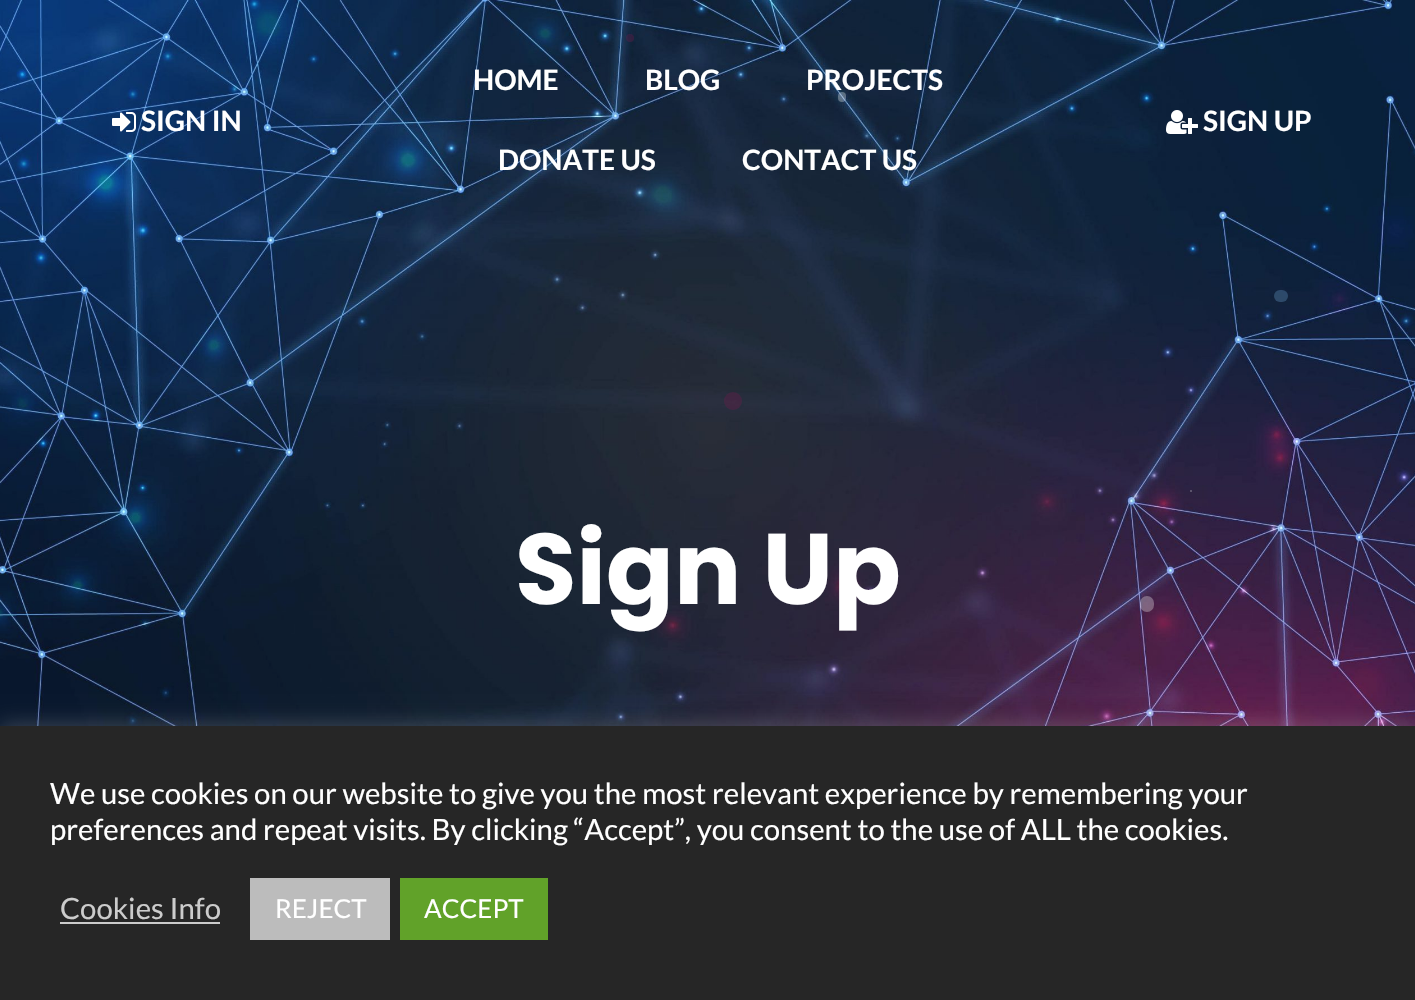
void draw(SkCanvas* c) {
SkPaint p;
p.setAntiAlias(true);
auto F=[&](const char* family, int weight, float size, bool italic = false){SkFontStyle style(weight, SkFontStyle::kNormal_Width,italic ? SkFontStyle::kItalic_Slant : SkFontStyle::kUpright_Slant);SkFont result(fontMgr->matchFamilyStyle(family, style), size);result.setSubpixel(true);return result;};
auto T=[&](const char* s, float x, float y, const SkFont& font){c->drawString(s, x, y, font, p);};
auto R=[&](float x, float y, float w, float h){c->drawRect(SkRect::MakeXYWH(x, y, w, h), p);};
auto Q=[&](float x, float y, float w, float h, float radius){c->drawRoundRect(SkRect::MakeXYWH(x, y, w, h), radius, radius, p);};
auto I=[&](const char* path, float x, float y, float w, float h){auto image = SkImages::DeferredFromEncodedData(SkData::MakeFromFileName(path));c->drawImageRect(image, SkRect::MakeXYWH(x, y, w, h), SkSamplingOptions());};
c->clear(0xffffffff);
I("1.png",0,0,1415,726);
p.setColor(0x4d79184c);
c->drawCircle(630,38,4,p);
I("2.png",112,112,24,20);
auto f1 = F("Lato",700,28);
p.setColor(0xffffffff);
T("SIGN IN",141,131,f1);
T("HOME",473,90,f1);
T("BLOG",645,90,f1);
T("PROJECTS",806,90,f1);
T("DONATE US",498,170,f1);
T("CONTACT US",742,170,f1);
I("3.png",1166,110,32,24);
T("SIGN UP",1203,131,f1);
p.setColor(0x4dffffff);
Q(838,92,8,10,4);
p.setColor(0x4d6ca7d8);
Q(1274,290,14,12,6);
p.setColor(0x4d79184c);
c->drawCircle(733,401,9,p);
p.setColor(0xff6b647a);
c->drawCircle(1191,491,1,p);
auto f2 = F("Poppins",700,100);
p.setColor(0xffffffff);
T("Sign Up",515,604,f2);
p.setColor(0x4dffffff);
Q(1140,596,14,16,7);
p.setColor(0x4dacabab);
p.setMaskFilter(SkMaskFilter::MakeBlur(kNormal_SkBlurStyle, 10));
c->drawRect(SkRect::MakeXYWH(0,724,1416,274),p);
p.setMaskFilter(nullptr);
p.setColor(0xff262626);
R(0,726,1415,274);
auto f3 = F("Lato",400,29.35);
p.setColor(0xffffffff);
T("We use cookies on our website to give you the most relevant experience by remembering your",50,804,f3);
T("preferences and repeat visits. By clicking “Accept”, you consent to the use of ALL the cookies.",50,840,f3);
p.setColor(0xffcccccc);
T("Cookies Info",60,919,f3);
R(60,922,160,2);
p.setColor(0xffbcbcbc);
R(250,878,140,62);
auto f4 = F("Lato",400,26);
p.setColor(0xffffffff);
T("REJECT",275,918,f4);
p.setColor(0xff61a229);
R(400,878,148,62);
p.setColor(0xffffffff);
T("ACCEPT",424,918,f4);
}
